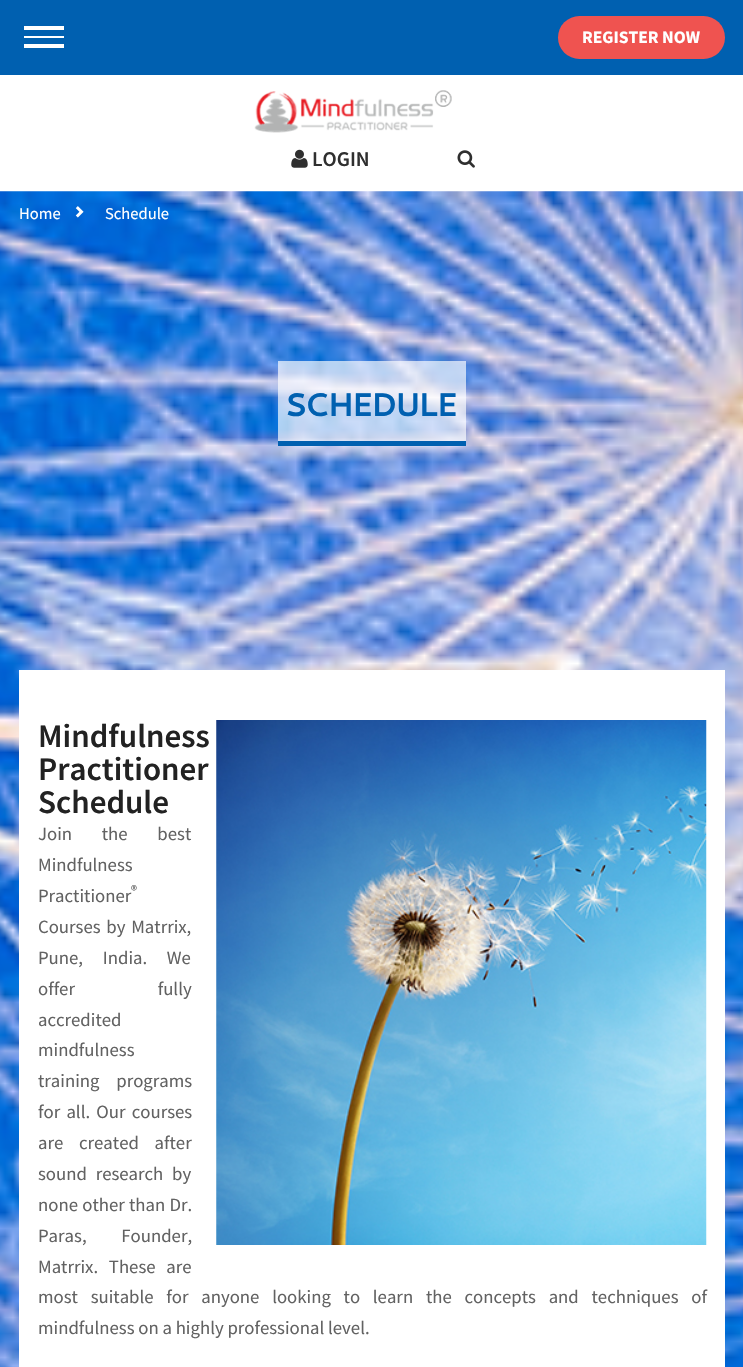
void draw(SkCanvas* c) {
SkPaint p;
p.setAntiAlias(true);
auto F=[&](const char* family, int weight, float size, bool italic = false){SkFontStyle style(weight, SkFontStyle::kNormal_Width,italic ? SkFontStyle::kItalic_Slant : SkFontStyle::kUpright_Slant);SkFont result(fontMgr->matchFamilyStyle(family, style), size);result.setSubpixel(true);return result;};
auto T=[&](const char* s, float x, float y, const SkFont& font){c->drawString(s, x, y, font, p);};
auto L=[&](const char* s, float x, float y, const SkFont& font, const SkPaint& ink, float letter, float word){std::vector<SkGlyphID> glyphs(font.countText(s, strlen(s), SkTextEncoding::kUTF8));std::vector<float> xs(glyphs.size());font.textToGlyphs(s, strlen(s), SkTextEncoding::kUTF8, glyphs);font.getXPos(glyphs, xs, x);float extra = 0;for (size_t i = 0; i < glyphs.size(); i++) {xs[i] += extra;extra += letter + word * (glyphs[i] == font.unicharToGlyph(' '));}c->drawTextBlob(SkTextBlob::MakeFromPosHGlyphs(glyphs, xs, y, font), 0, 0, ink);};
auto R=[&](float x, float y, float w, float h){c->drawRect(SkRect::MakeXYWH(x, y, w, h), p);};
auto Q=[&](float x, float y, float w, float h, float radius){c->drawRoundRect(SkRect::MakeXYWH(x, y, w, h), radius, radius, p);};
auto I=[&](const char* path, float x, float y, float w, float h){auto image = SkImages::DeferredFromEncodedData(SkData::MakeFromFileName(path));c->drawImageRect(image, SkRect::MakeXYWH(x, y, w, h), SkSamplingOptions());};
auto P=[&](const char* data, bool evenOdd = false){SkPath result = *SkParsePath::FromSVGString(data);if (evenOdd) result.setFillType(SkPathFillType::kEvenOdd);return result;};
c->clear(0xffffffff);
p.setColor(0xff0060b0);
R(0,0,743,75);
p.setColor(0xffffffff);
c->drawPath(P("M24 44h40v4h-40zm0-8h40v2h-40zm0-10h40v4h-40z"),p);
p.setColor(0xffef5350);
Q(558,16,167,43,21.5);
auto f1 = F("Source Sans Pro",700,17.5);
p.setColor(0xffffffff);
T("REGISTER NOW",582,43,f1);
I("1.png",254,90,198,43);
I("2.png",291,149,17,19);
auto f2 = F("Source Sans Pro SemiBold",600,21);
p.setColor(0xff2f2f2f);
T("LOGIN",312,166,f2);
I("3.png",457,150,18,18);
I("4.png",0,191,743,1176);
auto f3 = F("Source Sans Pro",400,16.5);
p.setColor(0xffffffff);
T("Home",19,219,f3);
I("5.png",75,206,9,12);
T("Schedule",105,219,f3);
p.setColor(0xabffffff);
R(278,361,188,80);
p.setColor(0xff0060b0);
R(278,441,188,5);
auto f4 = F("Cambay",700,33);
T("SCHEDULE",286,416,f4);
p.setColor(0xffffffff);
R(19,670,706,697);
auto f5 = F("Source Sans Pro SemiBold",600,33);
p.setColor(0xff222222);
T("Mindfulness",38,747,f5);
T("Practitioner",38,780,f5);
T("Schedule",38,813,f5);
I("6.png",216,720,491,525);
auto f6 = F("Source Sans Pro",400,18.75);
p.setColor(0xff626262);
L("Join the best",38,840,f6,p,0,26);
T("Mindfulness",38,871,f6);
auto f7 = F("Source Sans Pro",400,14);
T("®",131,895,f7);
T("Practitioner",38,902,f6);
L("Courses by Matrrix,",38,933,f6,p,0,2);
L("Pune, India. We",38,964,f6,p,0,16);
L("offer fully",38,995,f6,p,0,79);
T("accredited",38,1026,f6);
T("mindfulness",38,1056,f6);
L("training programs",38,1087,f6,p,0,13);
L("for all. Our courses",38,1118,f6,p,0,2.5);
L("are created after",38,1149,f6,p,0,12);
L("sound research by",38,1180,f6,p,0,5);
L("none other than Dr.",38,1211,f6,p,0,.5);
L("Paras, Founder,",38,1242,f6,p,0,31);
L("Matrrix. These are",38,1273,f6,p,0,7);
L("most suitable for anyone looking to learn the concepts and techniques of",38,1303,f6,p,0,9);
T("mindfulness on a highly professional level.",38,1334,f6);
}
